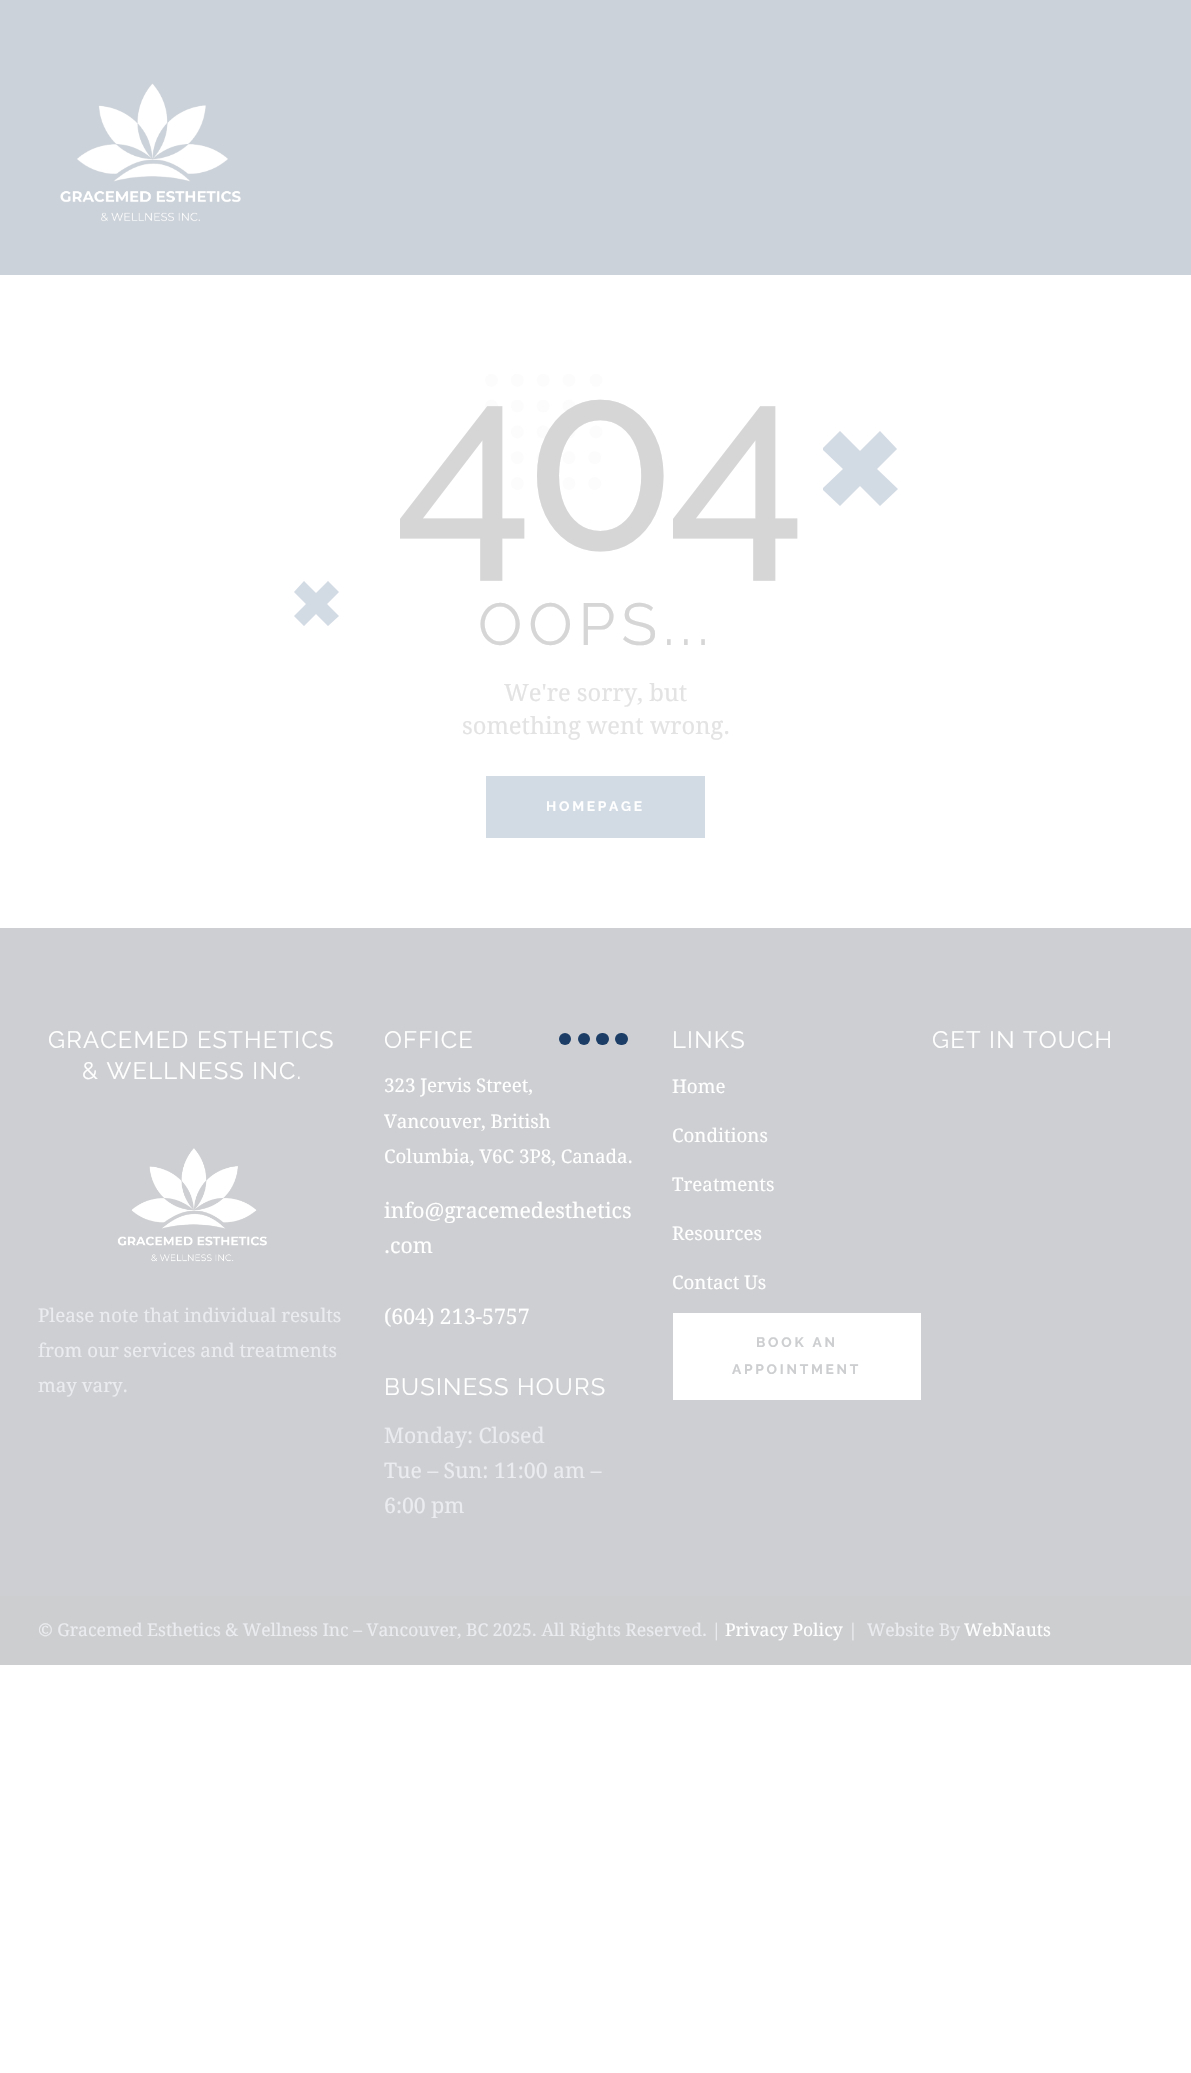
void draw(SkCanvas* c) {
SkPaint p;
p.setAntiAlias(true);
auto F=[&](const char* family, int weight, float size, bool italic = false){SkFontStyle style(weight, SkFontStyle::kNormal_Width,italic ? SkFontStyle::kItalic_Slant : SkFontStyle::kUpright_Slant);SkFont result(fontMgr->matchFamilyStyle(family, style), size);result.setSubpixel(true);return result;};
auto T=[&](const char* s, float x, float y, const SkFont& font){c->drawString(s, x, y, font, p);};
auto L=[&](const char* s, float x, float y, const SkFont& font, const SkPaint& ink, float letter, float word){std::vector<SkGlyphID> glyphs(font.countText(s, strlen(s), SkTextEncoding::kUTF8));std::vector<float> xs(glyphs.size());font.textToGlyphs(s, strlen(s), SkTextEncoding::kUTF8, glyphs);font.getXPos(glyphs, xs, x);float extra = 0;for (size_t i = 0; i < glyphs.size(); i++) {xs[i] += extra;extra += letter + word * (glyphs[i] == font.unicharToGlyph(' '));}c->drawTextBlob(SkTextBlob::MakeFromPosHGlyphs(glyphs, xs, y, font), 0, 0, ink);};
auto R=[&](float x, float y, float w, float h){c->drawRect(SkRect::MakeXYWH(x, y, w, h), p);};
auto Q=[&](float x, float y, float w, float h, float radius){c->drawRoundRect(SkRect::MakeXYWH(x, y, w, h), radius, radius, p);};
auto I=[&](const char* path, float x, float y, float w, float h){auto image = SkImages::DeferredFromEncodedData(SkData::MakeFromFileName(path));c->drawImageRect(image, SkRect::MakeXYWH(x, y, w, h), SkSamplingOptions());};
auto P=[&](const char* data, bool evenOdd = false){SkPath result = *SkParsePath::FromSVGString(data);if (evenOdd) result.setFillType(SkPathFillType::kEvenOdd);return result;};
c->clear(0xffffffff);
p.setColor(0xffccd2d9);
R(0,0,1191,275);
I("1.png",60,83,181,139);
I("2.png",484,374,119,116);
c->save();
c->clipRect(SkRect::MakeXYWH(823,431,75,75));
p.setColor(0xffd2dae4);
c->drawPath(P("M822 489l21-20l-21-20l18-18l20 20l20-20l17 18l-20 20l21 20l-18 17l-20-20l-20 20z"),p);
c->restore();
c->drawPath(P("M294 616l12-12l-12-12l10-11l12 12l12-12l11 11l-12 12l12 12l-11 10l-12-12l-12 12z"),p);
auto f1 = F("Raleway",500,250);
p.setColor(0xffd6d6d6);
L("404",394,549,f1,p,-10,0);
auto f2 = F("Raleway",400,59);
L("OOPS...",478,645,f2,p,6,0);
auto f3 = F("Droid Serif",400,23.75);
p.setColor(0xffe3e3e3);
T("We're sorry, but",504,701,f3);
T("something went wrong.",462,734,f3);
p.setColor(0xffd2dae4);
R(486,776,219,62);
auto f4 = F("Raleway",700,13.75);
p.setColor(0xffffffff);
L("HOMEPAGE",546,811,f4,p,2.75,0);
p.setColor(0xffcecfd2);
R(0,928,1191,668);
auto f5 = F("Raleway",400,23.75);
p.setColor(0xffffffff);
L("GRACEMED ESTHETICS",48,1048,f5,p,1.25,0);
L("& WELLNESS INC.",82,1079,f5,p,1.25,0);
I("3.png",117,1148,150,114);
auto f6 = F("Droid Serif",400,18.75);
p.setColor(0xffebecef);
T("Please note that individual results",38,1322,f6);
T("from our services and treatments",38,1357,f6);
T("may vary.",38,1392,f6);
p.setColor(0xffffffff);
L("OFFICE",384,1048,f5,p,1.25,0);
T("323 Jervis Street,",384,1092,f6);
T("Vancouver, British",384,1128,f6);
T("Columbia, V6C 3P8, Canada.",384,1163,f6);
auto f7 = F("Droid Serif",400,21.25);
T("info@gracemedesthetics",384,1218,f7);
T(".com",384,1253,f7);
T("(604) 213-5757",384,1324,f7);
L("BUSINESS HOURS",384,1395,f5,p,1.25,0);
p.setColor(0xffebecef);
T("Monday: Closed",384,1443,f7);
T("Tue – Sun: 11:00 am –",384,1478,f7);
T("6:00 pm",384,1513,f7);
p.setColor(0xffffffff);
L("LINKS",672,1048,f5,p,1.25,0);
T("Home",672,1093,f6);
T("Conditions",672,1142,f6);
T("Treatments",672,1191,f6);
T("Resources",672,1240,f6);
T("Contact Us",672,1289,f6);
R(673,1313,248,87);
p.setColor(0xffccced0);
L("BOOK AN",756,1347,f4,p,2.75,0);
L("APPOINTMENT",732,1374,f4,p,2.75,0);
p.setColor(0xffffffff);
L("GET IN TOUCH",932,1048,f5,p,1.25,0);
p.setColor(0xffccced0);
R(0,1596,1191,69);
auto f8 = F("Droid Serif",400,17.5);
p.setColor(0xffebecef);
T("© Gracemed Esthetics & Wellness Inc – Vancouver, BC 2025. All Rights Reserved. |",38,1636,f8);
p.setColor(0xffffffff);
T("Privacy Policy",725,1636,f8);
p.setColor(0xffebecef);
T("|  Website By",848,1636,f8);
p.setColor(0xffffffff);
T("WebNauts",964,1636,f8);
p.setColor(0xff1b3d66);
c->drawCircle(565,1039,6,p);
c->drawCircle(584,1039,6,p);
Q(596,1033,13,12,6);
Q(615,1033,13,12,6);
}
